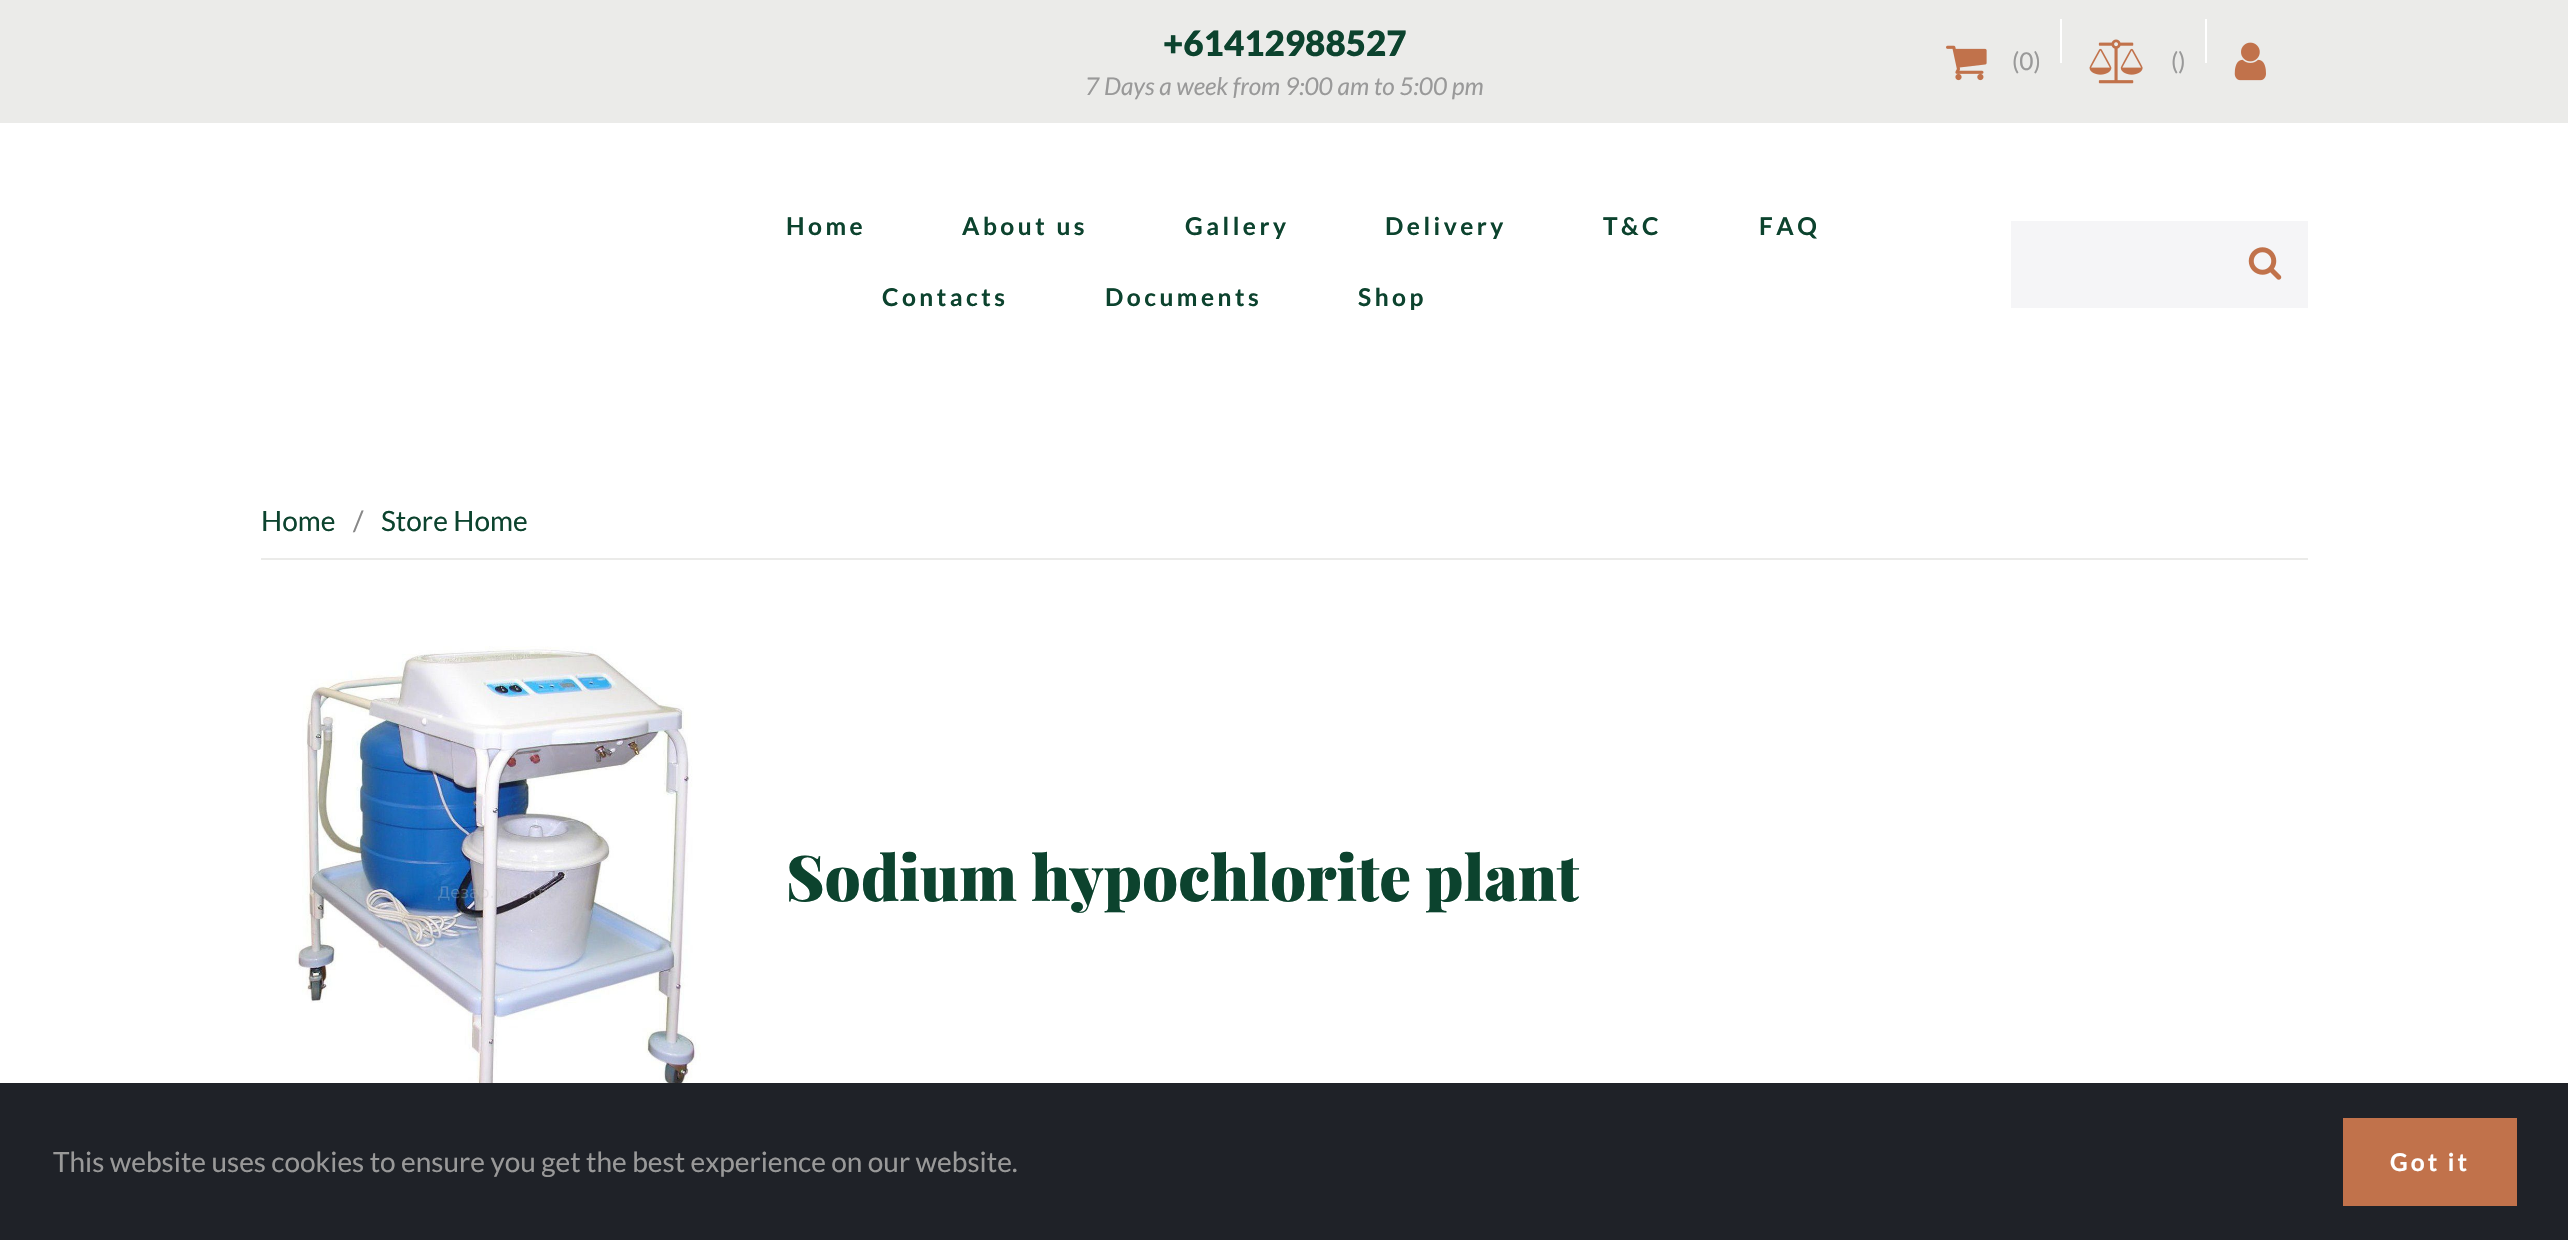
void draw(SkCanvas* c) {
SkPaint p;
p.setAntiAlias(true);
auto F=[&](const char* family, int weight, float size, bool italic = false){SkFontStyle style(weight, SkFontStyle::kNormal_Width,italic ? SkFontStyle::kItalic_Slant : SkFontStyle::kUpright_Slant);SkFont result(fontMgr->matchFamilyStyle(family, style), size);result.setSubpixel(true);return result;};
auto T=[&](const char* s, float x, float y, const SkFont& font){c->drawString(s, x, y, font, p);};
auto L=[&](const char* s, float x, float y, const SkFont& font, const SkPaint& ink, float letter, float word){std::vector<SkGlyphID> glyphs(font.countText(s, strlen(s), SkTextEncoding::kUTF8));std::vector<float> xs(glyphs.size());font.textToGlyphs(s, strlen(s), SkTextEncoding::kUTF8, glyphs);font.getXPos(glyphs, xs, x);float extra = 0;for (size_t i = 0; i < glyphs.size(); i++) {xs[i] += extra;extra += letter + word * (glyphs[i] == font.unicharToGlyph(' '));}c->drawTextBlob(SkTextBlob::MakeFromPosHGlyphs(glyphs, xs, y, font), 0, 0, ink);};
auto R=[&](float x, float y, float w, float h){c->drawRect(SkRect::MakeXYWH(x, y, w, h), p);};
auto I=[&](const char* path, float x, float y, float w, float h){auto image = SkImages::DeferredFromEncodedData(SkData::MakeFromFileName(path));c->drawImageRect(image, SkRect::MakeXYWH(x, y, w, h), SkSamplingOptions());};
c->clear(0xffffffff);
p.setColor(0xffebebe9);
R(0,0,2568,123);
auto f1 = F("Lato",900,35);
p.setColor(0xff0c432e);
T("+61412988527",1163,56,f1);
auto f2 = F("Lato",400,24.5,true);
p.setColor(0xff999999);
T("7 Days a week from 9:00 am to 5:00 pm",1085,95,f2);
I("1.png",1946,45,41,36);
auto f3 = F("Lato",400,24.5);
T("(0)",2012,70,f3);
p.setColor(0xffffffff);
R(2060,19,2,44);
I("2.png",2089,39,54,45);
p.setColor(0xff999999);
T("()",2171,70,f3);
p.setColor(0xffffffff);
R(2205,19,2,44);
I("3.png",2234,42,32,39);
auto f4 = F("Lato",700,24.5);
p.setColor(0xff0c432e);
L("Home",786,235,f4,p,3.5,0);
L("About us",962,235,f4,p,3.5,0);
L("Gallery",1185,235,f4,p,3.5,0);
L("Delivery",1385,235,f4,p,3.5,0);
L("T&C",1603,235,f4,p,3.5,0);
L("FAQ",1759,235,f4,p,3.5,0);
L("Contacts",882,306,f4,p,3.5,0);
L("Documents",1105,306,f4,p,3.5,0);
L("Shop",1358,306,f4,p,3.5,0);
p.setColor(0xfff5f5f7);
R(2011,221,297,87);
I("4.png",2248,247,34,33);
auto f5 = F("Lato",400,28);
p.setColor(0xff0c432e);
T("Home",261,531,f5);
p.setColor(0xff888888);
T("/",353,531,f5);
p.setColor(0xff0c432e);
T("Store Home",381,531,f5);
p.setColor(0xffebebe9);
R(261,558,2047,2);
I("5.png",295,646,406,437);
auto f6 = F("Playfair Display",900,63);
p.setColor(0xff0c432e);
T("Sodium hypochlorite plant",786,901,f6);
p.setColor(0xff1f2228);
R(0,1083,2568,157);
p.setColor(0xff999999);
T("This website uses cookies to ensure you get the best experience on our website.",53,1172,f5);
p.setColor(0xffc1724b);
R(2343,1118,174,88);
p.setColor(0xffffffff);
L("Got it",2390,1171,f4,p,3,0);
}
